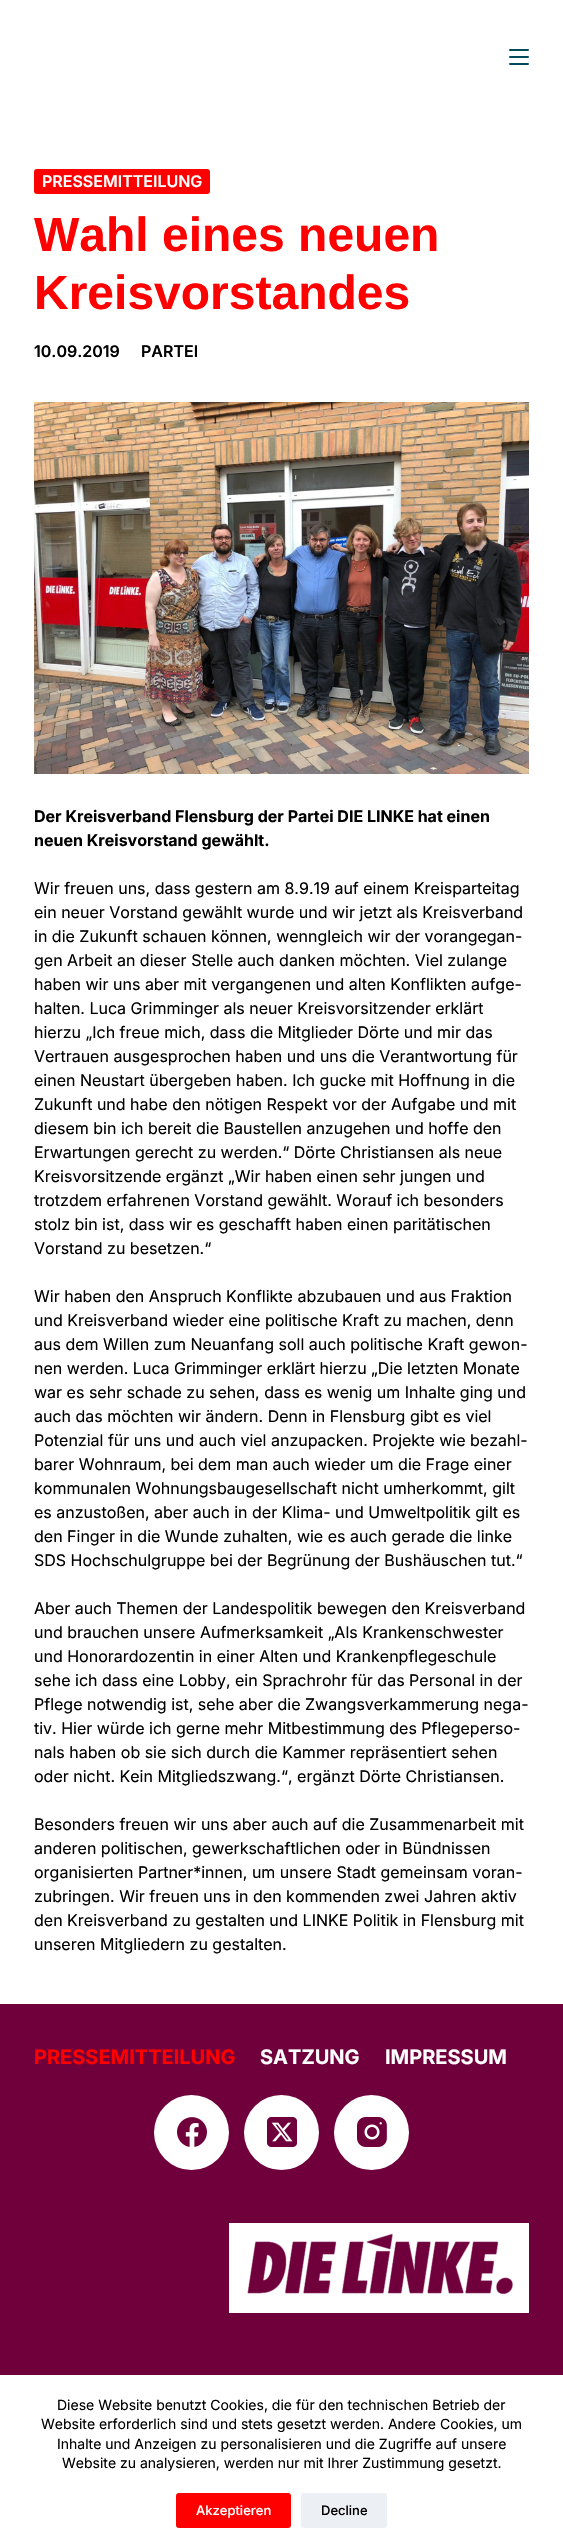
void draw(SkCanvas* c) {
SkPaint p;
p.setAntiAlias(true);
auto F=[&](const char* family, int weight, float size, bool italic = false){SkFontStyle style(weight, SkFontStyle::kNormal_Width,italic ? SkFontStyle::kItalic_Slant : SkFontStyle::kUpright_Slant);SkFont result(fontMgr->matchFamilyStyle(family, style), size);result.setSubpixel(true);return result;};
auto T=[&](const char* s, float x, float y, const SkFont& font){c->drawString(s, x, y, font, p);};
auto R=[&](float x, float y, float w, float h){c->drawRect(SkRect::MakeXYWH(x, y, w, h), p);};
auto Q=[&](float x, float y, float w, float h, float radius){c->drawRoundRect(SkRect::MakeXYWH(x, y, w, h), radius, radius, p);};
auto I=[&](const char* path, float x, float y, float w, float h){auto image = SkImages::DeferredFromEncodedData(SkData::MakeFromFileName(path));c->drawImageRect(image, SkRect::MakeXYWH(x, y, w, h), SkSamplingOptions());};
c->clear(0xffffffff);
p.setColor(0xff004b5b);
Q(509,49,20,2,1);
Q(509,56,20,2,1);
Q(509,63,20,2,1);
p.setColor(0xffff0000);
Q(34,169,176,25,3);
auto f1 = F("Inter",600,16);
p.setColor(0xffffffff);
T("PRESSEMITTEILUNG",42,187,f1);
auto f2 = F("Liberation Sans",700,48);
p.setColor(0xffff0000);
T("Wahl eines neuen",34,251,f2);
T("Kreisvorstandes",34,309,f2);
p.setColor(0xff000000);
T("10.09.2019",34,357,f1);
T("PARTEI",141,357,f1);
I("1.png",34,402,495,372);
auto f3 = F("Inter",700,16);
T("Der Kreisverband Flensburg der Partei DIE LINKE hat einen",34,822,f3);
T("neuen Kreisvorstand gewählt.",34,846,f3);
auto f4 = F("Inter",400,16);
T("Wir freuen uns, dass gestern am 8.9.19 auf einem Kreisparteitag",34,894,f4);
T("ein neuer Vorstand gewählt wurde und wir jetzt als Kreisverband",34,918,f4);
T("in die Zukunft schauen können, wenngleich wir der vorangegan-",34,942,f4);
T("gen Arbeit an dieser Stelle auch danken möchten. Viel zulange",34,966,f4);
T("haben wir uns aber mit vergangenen und alten Konflikten aufge-",34,990,f4);
T("halten. Luca Grimminger als neuer Kreisvorsitzender erklärt",34,1014,f4);
T("hierzu „Ich freue mich, dass die Mitglieder Dörte und mir das",34,1038,f4);
T("Vertrauen ausgesprochen haben und uns die Verantwortung für",34,1062,f4);
T("einen Neustart übergeben haben. Ich gucke mit Hoffnung in die",34,1086,f4);
T("Zukunft und habe den nötigen Respekt vor der Aufgabe und mit",34,1110,f4);
T("diesem bin ich bereit die Baustellen anzugehen und hoffe den",34,1134,f4);
T("Erwartungen gerecht zu werden.“ Dörte Christiansen als neue",34,1158,f4);
T("Kreisvorsitzende ergänzt „Wir haben einen sehr jungen und",34,1182,f4);
T("trotzdem erfahrenen Vorstand gewählt. Worauf ich besonders",34,1206,f4);
T("stolz bin ist, dass wir es geschafft haben einen paritätischen",34,1230,f4);
T("Vorstand zu besetzen.“",34,1254,f4);
T("Wir haben den Anspruch Konflikte abzubauen und aus Fraktion",34,1302,f4);
T("und Kreisverband wieder eine politische Kraft zu machen, denn",34,1326,f4);
T("aus dem Willen zum Neuanfang soll auch politische Kraft gewon-",34,1350,f4);
T("nen werden. Luca Grimminger erklärt hierzu „Die letzten Monate",34,1374,f4);
T("war es sehr schade zu sehen, dass es wenig um Inhalte ging und",34,1398,f4);
T("auch das möchten wir ändern. Denn in Flensburg gibt es viel",34,1422,f4);
T("Potenzial für uns und auch viel anzupacken. Projekte wie bezahl-",34,1446,f4);
T("barer Wohnraum, bei dem man auch wieder um die Frage einer",34,1470,f4);
T("kommunalen Wohnungsbaugesellschaft nicht umherkommt, gilt",34,1494,f4);
T("es anzustoßen, aber auch in der Klima- und Umweltpolitik gilt es",34,1518,f4);
T("den Finger in die Wunde zuhalten, wie es auch gerade die linke",34,1542,f4);
T("SDS Hochschulgruppe bei der Begrünung der Bushäuschen tut.“",34,1566,f4);
T("Aber auch Themen der Landespolitik bewegen den Kreisverband",34,1614,f4);
T("und brauchen unsere Aufmerksamkeit „Als Krankenschwester",34,1638,f4);
T("und Honorardozentin in einer Alten und Krankenpflegeschule",34,1662,f4);
T("sehe ich dass eine Lobby, ein Sprachrohr für das Personal in der",34,1686,f4);
T("Pflege notwendig ist, sehe aber die Zwangsverkammerung nega-",34,1710,f4);
T("tiv. Hier würde ich gerne mehr Mitbestimmung des Pflegeperso-",34,1734,f4);
T("nals haben ob sie sich durch die Kammer repräsentiert sehen",34,1758,f4);
T("oder nicht. Kein Mitgliedszwang.“, ergänzt Dörte Christiansen.",34,1782,f4);
T("Besonders freuen wir uns aber auch auf die Zusammenarbeit mit",34,1830,f4);
T("anderen politischen, gewerkschaftlichen oder in Bündnissen",34,1854,f4);
T("organisierten Partner*innen, um unsere Stadt gemeinsam voran-",34,1878,f4);
T("zubringen. Wir freuen uns in den kommenden zwei Jahren aktiv",34,1902,f4);
T("den Kreisverband zu gestalten und LINKE Politik in Flensburg mit",34,1926,f4);
T("unseren Mitgliedern zu gestalten.",34,1950,f4);
p.setColor(0xff6f003c);
R(0,2004,563,371);
auto f5 = F("Inter",700,20);
p.setColor(0xffff0000);
T("PRESSEMITTEILUNG",34,2064,f5);
p.setColor(0xffffffff);
T("SATZUNG",260,2064,f5);
T("IMPRESSUM",385,2064,f5);
c->drawCircle(191.5,2132.5,37.5,p);
I("2.png",177,2117,30,30);
c->drawCircle(281.5,2132.5,37.5,p);
I("3.png",267,2117,30,30);
c->drawCircle(371.5,2132.5,37.5,p);
I("4.png",357,2117,30,30);
I("5.png",229,2223,300,90);
auto f6 = F("Inter",400,14);
p.setColor(0xff000000);
T("Diese Website benutzt Cookies, die für den technischen Betrieb der",57,2410,f6);
T("Website erforderlich sind und stets gesetzt werden. Andere Cookies, um",41,2429,f6);
T("Inhalte und Anzeigen zu personalisieren und die Zugriffe auf unsere",57,2449,f6);
T("Website zu analysieren, werden nur mit Ihrer Zustimmung gesetzt.",62,2468,f6);
p.setColor(0xffff0000);
Q(176,2493,115,35,3);
auto f7 = F("Inter",500,13);
p.setColor(0xffffffff);
T("Akzeptieren",196,2515,f7);
p.setColor(0xffeceff3);
Q(301,2493,86,35,3);
p.setColor(0xff000000);
T("Decline",321,2515,f7);
}
